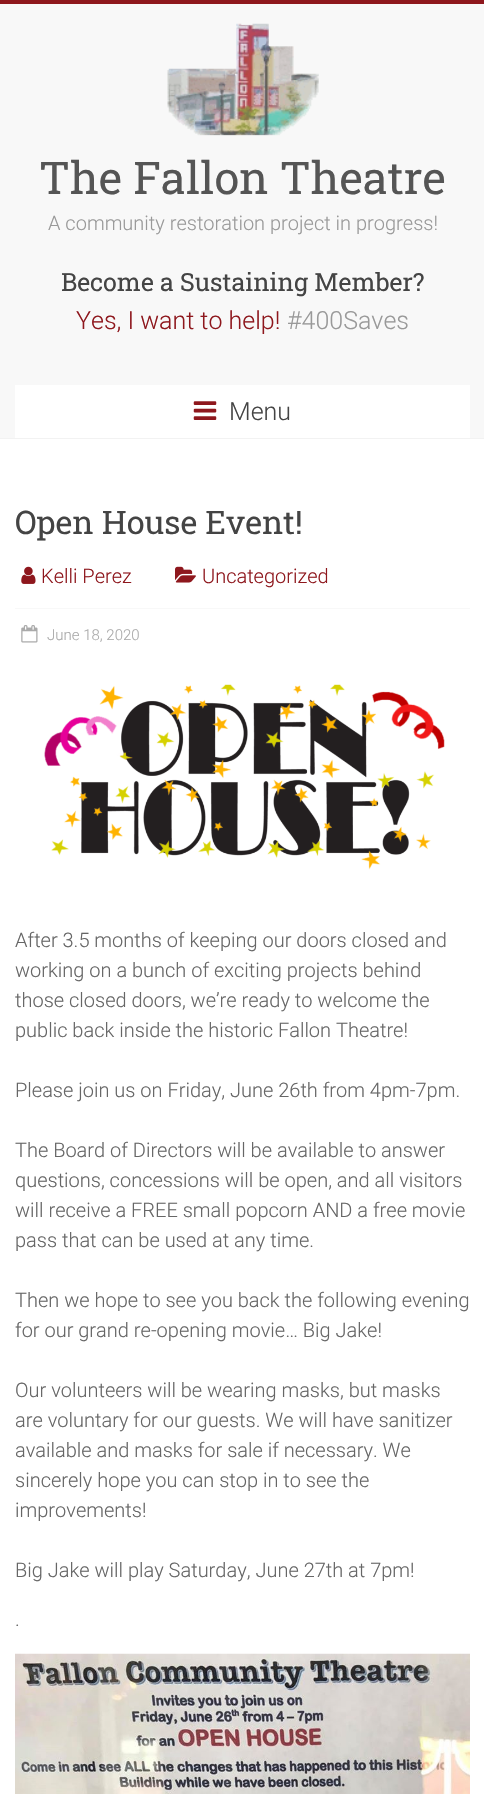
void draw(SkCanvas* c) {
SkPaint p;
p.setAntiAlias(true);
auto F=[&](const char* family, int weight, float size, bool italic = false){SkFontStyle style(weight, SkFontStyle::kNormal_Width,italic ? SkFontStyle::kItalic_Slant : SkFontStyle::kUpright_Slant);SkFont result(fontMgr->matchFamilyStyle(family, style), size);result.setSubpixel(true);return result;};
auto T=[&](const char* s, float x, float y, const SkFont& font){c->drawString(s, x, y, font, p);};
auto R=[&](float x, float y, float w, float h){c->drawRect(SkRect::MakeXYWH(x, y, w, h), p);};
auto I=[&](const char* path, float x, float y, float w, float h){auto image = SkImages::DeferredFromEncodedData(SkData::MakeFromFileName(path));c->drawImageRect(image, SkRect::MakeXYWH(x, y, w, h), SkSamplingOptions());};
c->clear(0xffffffff);
p.setColor(0xff8e171d);
R(0,0,484,4);
p.setColor(0xfff8f8f8);
R(0,4,484,434);
p.setColor(0xfff2f2f2);
R(0,438,484,1);
I("1.png",167,23,152,113);
auto f1 = F("Roboto Slab",400,45);
p.setColor(0xff555555);
T("The Fallon Theatre",39,194,f1);
auto f2 = F("Roboto",300,20);
p.setColor(0xff999999);
T("A community restoration project in progress!",48,230,f2);
auto f3 = F("Roboto Slab",400,25);
p.setColor(0xff444444);
T("Become a Sustaining Member?",61,291,f3);
auto f4 = F("Roboto",300,25);
p.setColor(0xff8e171d);
T("Yes, I want to help!",76,329,f4);
p.setColor(0xff999999);
T("#400Saves",287,329,f4);
p.setColor(0xffffffff);
R(15,385,455,53);
I("2.png",193,401,24,19);
p.setColor(0xff444444);
T("Menu",229,420,f4);
auto f5 = F("Roboto Slab",400,32.5);
T("Open House Event!",15,534,f5);
I("3.png",21,566,15,18);
p.setColor(0xff8e171d);
T("Kelli Perez",41,583,f2);
I("4.png",175,566,21,17);
T("Uncategorized",202,583,f2);
p.setColor(0xfff8f8f8);
R(15,608,455,1);
I("5.png",21,625,17,18);
auto f6 = F("Roboto",300,15);
p.setColor(0xffaaaaaa);
T("June 18, 2020",47,640,f6);
I("6.png",44,684,401,186);
p.setColor(0xff666666);
T("After 3.5 months of keeping our doors closed and",15,947,f2);
T("working on a bunch of exciting projects behind",15,977,f2);
T("those closed doors, we’re ready to welcome the",15,1007,f2);
T("public back inside the historic Fallon Theatre!",15,1037,f2);
T("Please join us on Friday, June 26th from 4pm-7pm.",15,1097,f2);
T("The Board of Directors will be available to answer",15,1157,f2);
T("questions, concessions will be open, and all visitors",15,1187,f2);
T("will receive a FREE small popcorn AND a free movie",15,1217,f2);
T("pass that can be used at any time.",15,1247,f2);
T("Then we hope to see you back the following evening",15,1307,f2);
T("for our grand re-opening movie… Big Jake!",15,1337,f2);
T("Our volunteers will be wearing masks, but masks",15,1397,f2);
T("are voluntary for our guests. We will have sanitizer",15,1427,f2);
T("available and masks for sale if necessary. We",15,1457,f2);
T("sincerely hope you can stop in to see the",15,1487,f2);
T("improvements!",15,1517,f2);
T("Big Jake will play Saturday, June 27th at 7pm!",15,1577,f2);
T(".",15,1626,f2);
I("7.png",15,1653,455,141);
}
